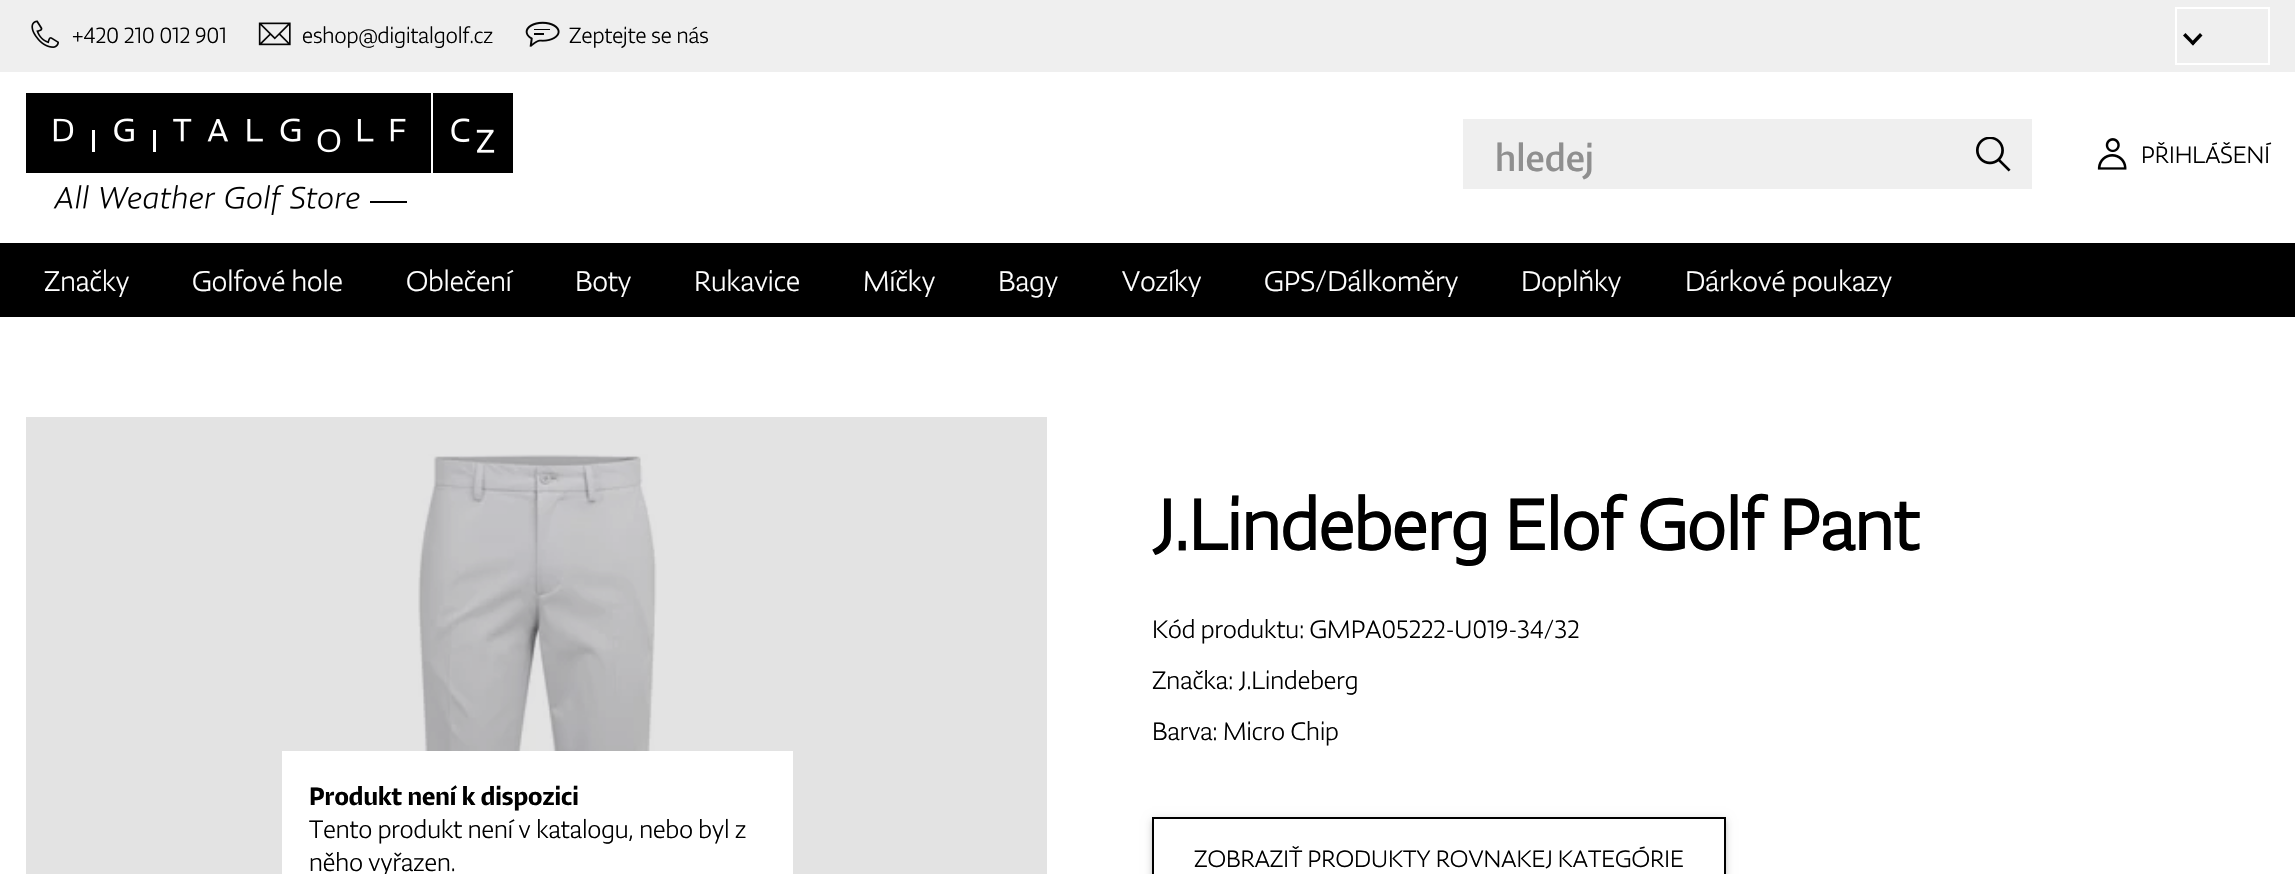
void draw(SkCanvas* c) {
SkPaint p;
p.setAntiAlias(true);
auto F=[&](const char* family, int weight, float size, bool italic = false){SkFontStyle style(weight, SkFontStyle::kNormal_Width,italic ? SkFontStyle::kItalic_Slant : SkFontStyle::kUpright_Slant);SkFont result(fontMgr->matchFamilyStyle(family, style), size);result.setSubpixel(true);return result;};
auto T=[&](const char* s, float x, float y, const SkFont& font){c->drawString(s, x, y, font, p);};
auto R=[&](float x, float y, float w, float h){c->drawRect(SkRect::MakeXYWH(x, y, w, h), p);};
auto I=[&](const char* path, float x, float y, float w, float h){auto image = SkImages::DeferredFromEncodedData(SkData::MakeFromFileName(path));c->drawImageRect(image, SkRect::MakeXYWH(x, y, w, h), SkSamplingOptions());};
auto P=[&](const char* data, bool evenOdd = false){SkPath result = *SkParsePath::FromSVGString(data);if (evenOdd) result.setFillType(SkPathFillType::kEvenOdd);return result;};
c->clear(0xffffffff);
p.setColor(0xffe3e3e3);
R(26,417,1021,457);
p.setColor(0xffefefef);
R(0,0,2295,72);
I("1.png",31,20,28,28);
auto f1 = F("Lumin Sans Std",300,24.5);
p.setColor(0xff000000);
T("+420 210 012 901",72,43,f1);
I("2.png",258,22,33,24);
T("eshop@digitalgolf.cz",302,43,f1);
I("3.png",525,21,35,26);
T("Zeptejte se nás",569,43,f1);
p.setStroke(true);
p.setStrokeWidth(2);
p.setColor(0xffffffff);
c->drawRect(SkRect::MakeXYWH(2176,8,93,56),p);
p.setStroke(false);
p.setColor(0xff000000);
c->drawPath(P("M2200 33l2.5 2.5l-9.5 10l-2.5-2.5z"),p);
c->drawPath(P("M2185.5 33l9.5 10l-2 2.5l-10-10z"),p);
I("4.png",26,93,487,122);
p.setColor(0xffefefef);
R(1463,119,569,70);
auto f2 = F("Lumin Sans Std",400,42);
p.setColor(0xff8f8f8f);
T("hledej",1495,171,f2);
I("5.png",1976,137,35,35);
I("6.png",2097,138,30,32);
auto f3 = F("Lumin Sans Std",300,26.25);
p.setColor(0xff000000);
T("PŘIHLÁŠENÍ",2141,163,f3);
R(0,243,2295,74);
auto f4 = F("Lumin Sans Std",300,31.5);
p.setColor(0xffffffff);
T("Značky",44,291,f4);
T("Golfové hole",192,291,f4);
T("Oblečení",406,291,f4);
T("Boty",575,291,f4);
T("Rukavice",694,291,f4);
T("Míčky",863,291,f4);
T("Bagy",998,291,f4);
T("Vozíky",1122,291,f4);
T("GPS/Dálkoměry",1264,291,f4);
T("Doplňky",1521,291,f4);
T("Dárkové poukazy",1685,291,f4);
I("7.png",418,454,239,297);
R(282,751,511,123);
auto f5 = F("Lumin Sans Std",500,28);
p.setColor(0xff000000);
T("Produkt není k dispozici",309,805,f5);
auto f6 = F("Lumin Sans Std",300,28);
T("Tento produkt není v katalogu, nebo byl z",309,838,f6);
T("něho vyřazen.",309,871,f6);
auto f7 = F("Lumin Sans Std",700,78.75);
T("J.Lindeberg Elof Golf Pant",1152,550,f7);
T("Kód produktu: GMPA05222-U019-34/32",1152,638,f6);
T("Značka: J.Lindeberg",1152,689,f6);
T("Barva: Micro Chip",1152,740,f6);
p.setColor(0x1f000000);
p.setMaskFilter(SkMaskFilter::MakeBlur(kNormal_SkBlurStyle, 4.5));
c->drawRect(SkRect::MakeXYWH(1152,819,574,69),p);
p.setMaskFilter(nullptr);
p.setColor(0x24000000);
p.setMaskFilter(SkMaskFilter::MakeBlur(kNormal_SkBlurStyle, 2));
c->drawRect(SkRect::MakeXYWH(1152,821,574,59),p);
p.setMaskFilter(nullptr);
p.setColor(0xffffffff);
c->drawRect(SkRect::MakeXYWH(1153,818,572,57),p);
p.setStroke(true);
p.setColor(0xff000000);
c->drawRect(SkRect::MakeXYWH(1153,818,572,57),p);
p.setStroke(false);
T("ZOBRAZIŤ PRODUKTY ROVNAKEJ KATEGÓRIE",1194,867,f3);
}
